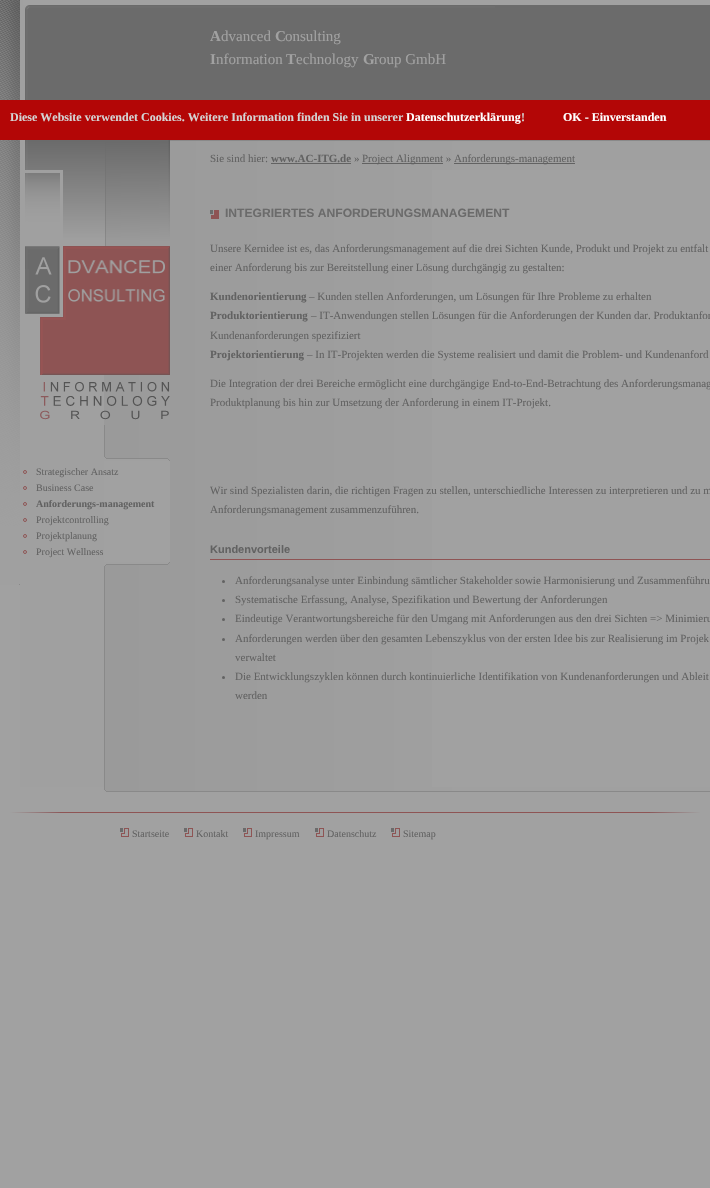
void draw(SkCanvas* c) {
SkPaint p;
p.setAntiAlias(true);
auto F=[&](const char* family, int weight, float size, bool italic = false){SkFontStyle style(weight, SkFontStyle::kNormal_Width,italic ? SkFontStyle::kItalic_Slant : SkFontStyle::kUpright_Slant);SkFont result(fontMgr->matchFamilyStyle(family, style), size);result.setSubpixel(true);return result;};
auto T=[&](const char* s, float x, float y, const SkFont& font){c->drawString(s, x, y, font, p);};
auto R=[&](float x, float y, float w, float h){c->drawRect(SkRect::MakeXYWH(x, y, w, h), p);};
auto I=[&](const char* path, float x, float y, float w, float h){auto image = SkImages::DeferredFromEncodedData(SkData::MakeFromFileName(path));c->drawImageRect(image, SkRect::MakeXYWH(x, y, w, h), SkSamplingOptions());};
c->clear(0xffa1a1a1);
I("1.png",0,0,23,585);
I("2.png",20,5,475,95);
auto f1 = F("Liberation Serif",700,15);
p.setColor(0xffa1a1a1);
T("A",210,41,f1);
auto f2 = F("Liberation Serif",400,15);
T("dvanced",221,41,f2);
T("C",275,41,f1);
T("onsulting",285,41,f2);
T("I",210,64,f1);
T("nformation",216,64,f2);
T("T",286,64,f1);
T("echnology",296,64,f2);
T("G",363,64,f1);
T("roup GmbH",374,64,f2);
p.setColor(0xff6b6b6b);
R(495,5,215,95);
I("3.png",25,140,685,30);
auto f3 = F("Liberation Serif",400,11);
p.setColor(0xff626262);
T("Sie sind hier:",210,162,f3);
auto f4 = F("Liberation Serif",700,11);
T("www.AC-ITG.de",271,162,f4);
R(271,163,80,1);
T("»",354,162,f3);
R(362,163,81,1);
T("Project Alignment »",362,162,f3);
R(454,163,121,1);
T("Anforderungs-management",454,162,f3);
I("4.png",20,170,412,617);
I("5.png",25,170,145,76);
I("6.png",25,246,145,179);
p.setColor(0xffa1a1a1);
R(104,461,66,101);
I("7.png",104,456,66,5);
p.setStroke(true);
p.setStrokeWidth(1);
p.setColor(0xff8e5454);
c->drawCircle(25,472,1.5,p);
auto f5 = F("Liberation Serif",400,10);
p.setStroke(false);
p.setColor(0xff626262);
T("Strategischer Ansatz",36,475,f5);
p.setStroke(true);
p.setColor(0xff8e5454);
c->drawCircle(25,488,1.5,p);
p.setStroke(false);
p.setColor(0xff626262);
T("Business Case",36,491,f5);
p.setStroke(true);
p.setColor(0xff8e5454);
c->drawCircle(25,504,1.5,p);
auto f6 = F("Liberation Serif",700,10);
p.setStroke(false);
p.setColor(0xff626262);
T("Anforderungs-management",36,507,f6);
p.setStroke(true);
p.setColor(0xff8e5454);
c->drawCircle(25,520,1.5,p);
p.setStroke(false);
p.setColor(0xff626262);
T("Projektcontrolling",36,523,f5);
p.setStroke(true);
p.setColor(0xff8e5454);
c->drawCircle(25,536,1.5,p);
p.setStroke(false);
p.setColor(0xff626262);
T("Projektplanung",36,539,f5);
p.setStroke(true);
p.setColor(0xff8e5454);
c->drawCircle(25,552,1.5,p);
p.setStroke(false);
p.setColor(0xff626262);
T("Project Wellness",36,555,f5);
I("8.png",104,562,66,5);
I("9.png",210,210,9,9);
auto f7 = F("Liberation Sans",700,12.1);
p.setColor(0xff6b6b6b);
T("INTEGRIERTES ANFORDERUNGSMANAGEMENT",225,217,f7);
p.setColor(0xff626262);
T("Unsere Kernidee ist es, das Anforderungsmanagement auf die drei Sichten Kunde, Produkt und Projekt zu entfalt",210,252,f3);
T("einer Anforderung bis zur Bereitstellung einer Lösung durchgängig zu gestalten:",210,271,f3);
T("Kundenorientierung",210,300,f4);
T("– Kunden stellen Anforderungen, um Lösungen für Ihre Probleme zu erhalten",309,300,f3);
T("Produktorientierung",210,319,f4);
T("– IT-Anwendungen stellen Lösungen für die Anforderungen der Kunden dar. Produktanfor",311,319,f3);
T("Kundenanforderungen spezifiziert",210,339,f3);
T("Projektorientierung",210,358,f4);
T("– In IT-Projekten werden die Systeme realisiert und damit die Problem- und Kundenanford",307,358,f3);
T("Die Integration der drei Bereiche ermöglicht eine durchgängige End-to-End-Betrachtung des Anforderungsmanag",210,387,f3);
T("Produktplanung bis hin zur Umsetzung der Anforderung in einem IT-Projekt.",210,406,f3);
T("Wir sind Spezialisten darin, die richtigen Fragen zu stellen, unterschiedliche Interessen zu interpretieren und zu m",210,494,f3);
T("Anforderungsmanagement zusammenzuführen.",210,513,f3);
p.setColor(0xff8e5454);
R(210,559,500,1);
auto f8 = F("Liberation Sans",700,11);
p.setColor(0xff626262);
T("Kundenvorteile",210,553,f8);
c->drawCircle(223.5,581.5,1.5,p);
T("Anforderungsanalyse unter Einbindung sämtlicher Stakeholder sowie Harmonisierung und Zusammenführu",235,584,f3);
c->drawCircle(223.5,600.5,1.5,p);
T("Systematische Erfassung, Analyse, Spezifikation und Bewertung der Anforderungen",235,603,f3);
c->drawCircle(223.5,619.5,1.5,p);
T("Eindeutige Verantwortungsbereiche für den Umgang mit Anforderungen aus den drei Sichten => Minimieru",235,622,f3);
c->drawCircle(223.5,639.5,1.5,p);
T("Anforderungen werden über den gesamten Lebenszyklus von der ersten Idee bis zur Realisierung im Projek",235,642,f3);
T("verwaltet",235,661,f3);
c->drawCircle(223.5,677.5,1.5,p);
T("Die Entwicklungszyklen können durch kontinuierliche Identifikation von Kundenanforderungen und Ableit",235,680,f3);
T("werden",235,699,f3);
I("10.png",104,787,606,5);
p.setColor(0xffb30606);
R(0,100,710,40);
auto f9 = F("Liberation Serif",700,12);
p.setColor(0xffd4d4d4);
T("Diese Website verwendet Cookies. Weitere Information finden Sie in unserer",10,121,f9);
p.setColor(0xffffffff);
T("Datenschutzerklärung",406,121,f9);
p.setColor(0xffd4d4d4);
T("!",521,121,f9);
p.setColor(0xffffffff);
T("OK - Einverstanden",563,121,f9);
I("11.png",120,828,9,9);
p.setColor(0xff626262);
T("Startseite",132,837,f5);
I("11.png",184,828,9,9);
T("Kontakt",196,837,f5);
I("11.png",243,828,9,9);
T("Impressum",255,837,f5);
I("11.png",315,828,9,9);
T("Datenschutz",327,837,f5);
I("11.png",391,828,9,9);
T("Sitemap",403,837,f5);
p.setColor(0xff8e5454);
R(60,812,590,1);
I("12.png",650,812,50,1);
I("13.png",10,812,50,1);
}
